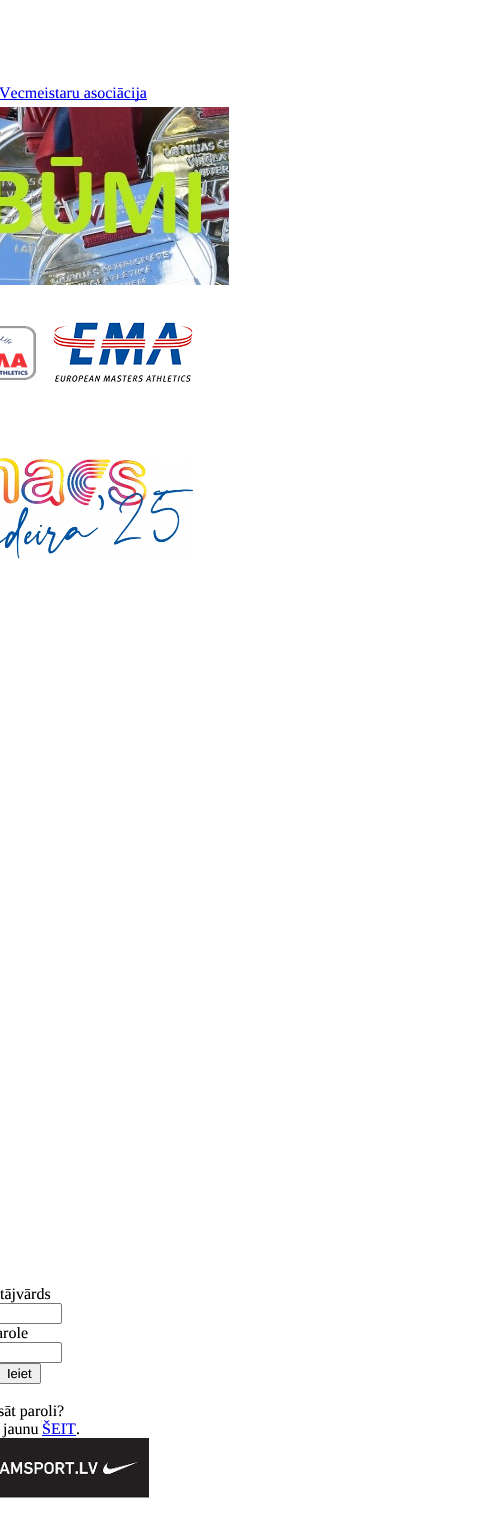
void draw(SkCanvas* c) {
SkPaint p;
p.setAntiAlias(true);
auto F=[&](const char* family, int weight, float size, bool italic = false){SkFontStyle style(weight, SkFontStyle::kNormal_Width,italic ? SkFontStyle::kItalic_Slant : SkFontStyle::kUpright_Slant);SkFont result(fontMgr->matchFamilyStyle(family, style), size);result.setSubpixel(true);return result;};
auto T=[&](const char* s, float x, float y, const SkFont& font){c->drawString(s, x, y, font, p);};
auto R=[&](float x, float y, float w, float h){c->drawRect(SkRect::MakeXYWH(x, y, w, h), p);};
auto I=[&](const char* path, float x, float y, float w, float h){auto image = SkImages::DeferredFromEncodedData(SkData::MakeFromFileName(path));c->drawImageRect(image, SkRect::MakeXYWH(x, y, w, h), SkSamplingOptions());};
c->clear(0xffffffff);
p.setColor(0xff0000ee);
R(0,99,147,1);
auto f1 = F("Liberation Serif",400,16);
T("Vecmeistaru asociācija",-1,98,f1);
I("1.png",0,107,229,178);
I("2.png",0,326,36,54);
I("3.png",53,322,140,60);
I("4.png",0,457,193,102);
p.setColor(0xff000000);
T("tājvārds",0,1299,f1);
p.setStroke(true);
p.setStrokeWidth(1);
p.setColor(0xff767676);
c->drawRoundRect(SkRect::MakeXYWH(-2.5,1303.5,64,20),1.5,1.5,p);
p.setStroke(false);
p.setColor(0xff000000);
T("arole",-4,1338,f1);
p.setStroke(true);
p.setColor(0xff767676);
c->drawRoundRect(SkRect::MakeXYWH(-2.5,1342.5,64,20),1.5,1.5,p);
p.setStroke(false);
p.setColor(0xffefefef);
c->drawRoundRect(SkRect::MakeXYWH(-.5,1363.5,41,20),1.5,1.5,p);
p.setStroke(true);
p.setColor(0xff767676);
c->drawRoundRect(SkRect::MakeXYWH(-.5,1363.5,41,20),1.5,1.5,p);
auto f2 = F("Liberation Sans",400,13);
p.setStroke(false);
p.setColor(0xff000000);
T("Ieiet",7,1378,f2);
T("sāt paroli?",-2,1416,f1);
T("jaunu",3,1434,f1);
p.setColor(0xff0000ee);
T("ŠEIT",42,1434,f1);
R(42,1435,34,1);
p.setColor(0xff000000);
T(".",76,1434,f1);
I("5.png",0,1438,149,60);
}
